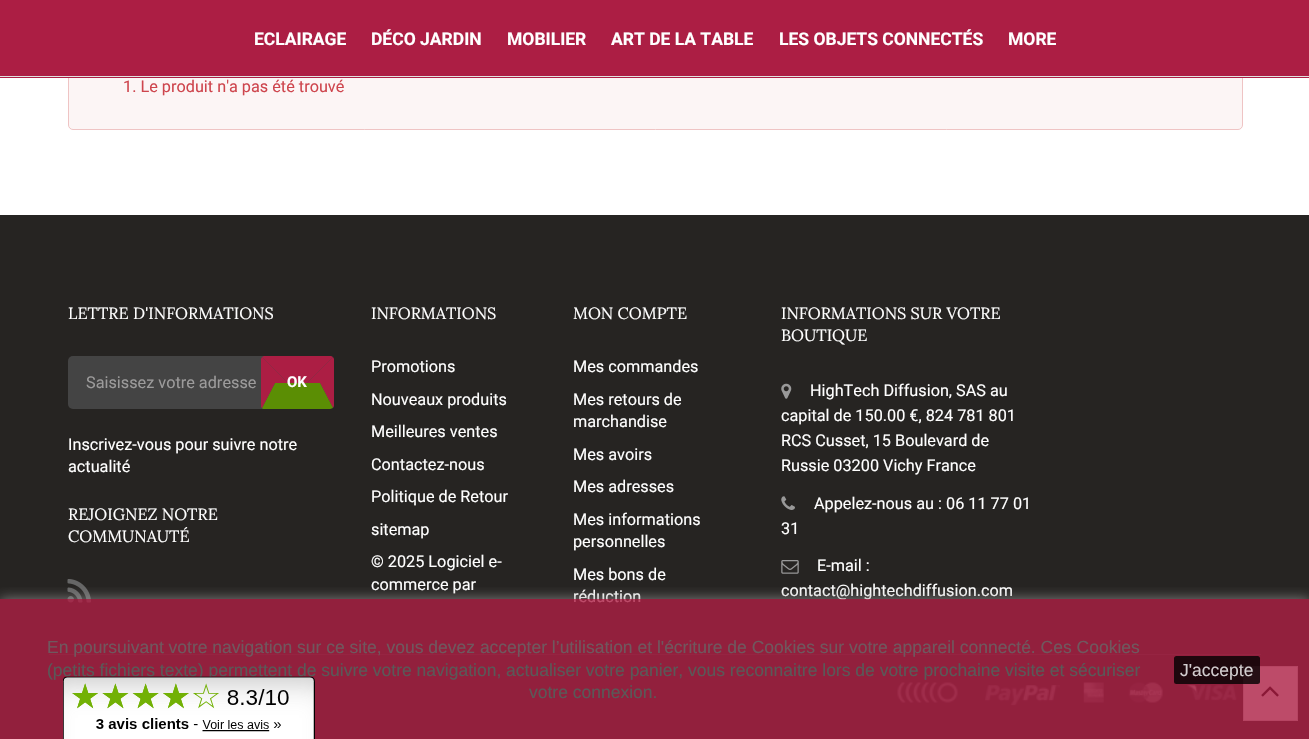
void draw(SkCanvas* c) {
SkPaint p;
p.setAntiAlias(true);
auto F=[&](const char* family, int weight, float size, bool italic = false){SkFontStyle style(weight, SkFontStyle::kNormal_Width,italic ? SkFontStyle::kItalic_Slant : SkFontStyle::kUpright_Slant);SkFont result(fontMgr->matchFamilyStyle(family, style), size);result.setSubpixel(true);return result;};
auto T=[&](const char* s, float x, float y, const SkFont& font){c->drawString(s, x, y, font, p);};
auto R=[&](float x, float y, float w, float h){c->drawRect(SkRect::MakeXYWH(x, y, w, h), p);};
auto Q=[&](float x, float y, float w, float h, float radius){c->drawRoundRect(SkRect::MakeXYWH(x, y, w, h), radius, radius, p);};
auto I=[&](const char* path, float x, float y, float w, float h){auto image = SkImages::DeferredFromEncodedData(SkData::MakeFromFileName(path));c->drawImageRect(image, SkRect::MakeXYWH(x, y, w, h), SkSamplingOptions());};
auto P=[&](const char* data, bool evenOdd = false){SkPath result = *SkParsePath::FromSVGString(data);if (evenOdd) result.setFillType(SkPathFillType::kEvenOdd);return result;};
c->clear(0xffffffff);
p.setColor(0xfffcf5f5);
c->drawRoundRect(SkRect::MakeXYWH(68.5,34.5,1174,95),4.5,4.5,p);
p.setStroke(true);
p.setStrokeWidth(1);
p.setColor(0xffefc4c4);
c->drawRoundRect(SkRect::MakeXYWH(68.5,34.5,1174,95),4.5,4.5,p);
p.setStroke(false);
p.setColor(0xffac1e44);
R(0,0,1309,78);
p.setColor(0xffe1e1e1);
R(0,76,1309,1);
auto f1 = F("Roboto",700,17.5);
p.setColor(0xffffffff);
T("ECLAIRAGE",254,45,f1);
T("DÉCO JARDIN",371,45,f1);
T("MOBILIER",507,45,f1);
T("ART DE LA TABLE",611,45,f1);
T("LES OBJETS CONNECTÉS",779,45,f1);
T("MORE",1008,45,f1);
auto f2 = F("Roboto",400,16.25);
p.setColor(0xffce454d);
T("1. Le produit n'a pas été trouvé",123,92,f2);
p.setColor(0xff262422);
R(0,215,1309,524);
p.setColor(0xff3b3b3b);
R(49,654,1212,1);
auto f3 = F("Lora",400,16.25);
p.setColor(0xffffffff);
T("LETTRE D'INFORMATIONS",68,319,f3);
p.setColor(0xff444444);
Q(68,356,266,53,5);
p.setColor(0xff9c9b9b);
T("Saisissez votre adresse",86,388,f2);
p.setColor(0xffac1e44);
c->drawPath(P("M331 356h-67l-2 1l26 26h19l26-26z"),p);
c->drawPath(P("M333 357l-26 26h13l13 25l1-2v-47z"),p);
p.setColor(0xff5b8e04);
c->drawPath(P("M333 408l-13-25h-45l-13 25l1 1h67z"),p);
p.setColor(0xffac1e44);
c->drawPath(P("M262 408l13-25h13l-26-26l-1 2v48z"),p);
auto f4 = F("Roboto",700,15);
p.setColor(0xffffffff);
T("OK",287,387,f4);
T("Inscrivez-vous pour suivre notre",68,450,f2);
T("actualité",68,472,f2);
T("REJOIGNEZ NOTRE",68,520,f3);
T("COMMUNAUTÉ",68,542,f3);
I("1.png",67,579,24,24);
T("INFORMATIONS",371,319,f3);
T("Promotions",371,372,f2);
T("Nouveaux produits",371,405,f2);
T("Meilleures ventes",371,437,f2);
T("Contactez-nous",371,470,f2);
T("Politique de Retour",371,502,f2);
T("sitemap",371,535,f2);
T("© 2025 Logiciel e-",371,567,f2);
T("commerce par",371,590,f2);
T("MON COMPTE",573,319,f3);
T("Mes commandes",573,372,f2);
T("Mes retours de",573,405,f2);
T("marchandise",573,427,f2);
T("Mes avoirs",573,460,f2);
T("Mes adresses",573,492,f2);
T("Mes informations",573,525,f2);
T("personnelles",573,547,f2);
T("Mes bons de",573,580,f2);
T("réduction",573,602,f2);
T("INFORMATIONS SUR VOTRE",781,319,f3);
T("BOUTIQUE",781,341,f3);
I("2.png",781,383,11,16);
T("HighTech Diffusion, SAS au",810,396,f2);
T("capital de 150.00 €, 824 781 801",781,421,f2);
T("RCS Cusset, 15 Boulevard de",781,446,f2);
T("Russie 03200 Vichy France",781,471,f2);
I("3.png",781,496,14,14);
T("Appelez-nous au : 06 11 77 01",814,509,f2);
T("31",781,534,f2);
I("4.png",781,560,18,14);
T("E-mail :",817,571,f2);
T("contact@hightechdiffusion.com",781,596,f2);
I("6.png",897,682,61,21);
I("7.png",985,685,75,21);
I("8.png",1083,682,21,21);
I("9.png",1128,682,35,21);
I("10.png",1187,684,50,17);
c->drawRect(SkRect::MakeXYWH(1243.5,666.5,54,54),p);
p.setStroke(true);
p.setColor(0xffd9d9d9);
c->drawRect(SkRect::MakeXYWH(1243.5,666.5,54,54),p);
I("11.png",1261,686,18,11);
c->save();
c->clipRect(SkRect::MakeXYWH(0,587,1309,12));
p.setStroke(false);
p.setColor(0xcc999999);
p.setMaskFilter(SkMaskFilter::MakeBlur(kNormal_SkBlurStyle, 6));
c->drawRect(SkRect::MakeXYWH(0,599,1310,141),p);
p.setMaskFilter(nullptr);
c->restore();
p.setColor(0xccac1e44);
R(0,599,1309,140);
auto f5 = F("Liberation Sans",400,17.5);
p.setColor(0xff6f585e);
T("En poursuivant votre navigation sur ce site, vous devez accepter l’utilisation et l'écriture de Cookies sur votre appareil connecté. Ces Cookies",47,653,f5);
p.setColor(0xff595958);
T("(petits fichiers texte) permettent de suivre votre navigation, actualiser votre panier, vous reconnaitre lors de votre prochaine visite et sécuriser",47,676,f5);
T("votre connexion.",529,698,f5);
p.setColor(0xcc000000);
Q(1174,656,86,28,2.5);
p.setColor(0xffd2cdcf);
T("J'accepte",1180,676,f5);
I("5.png",63,676,252,63);
}
